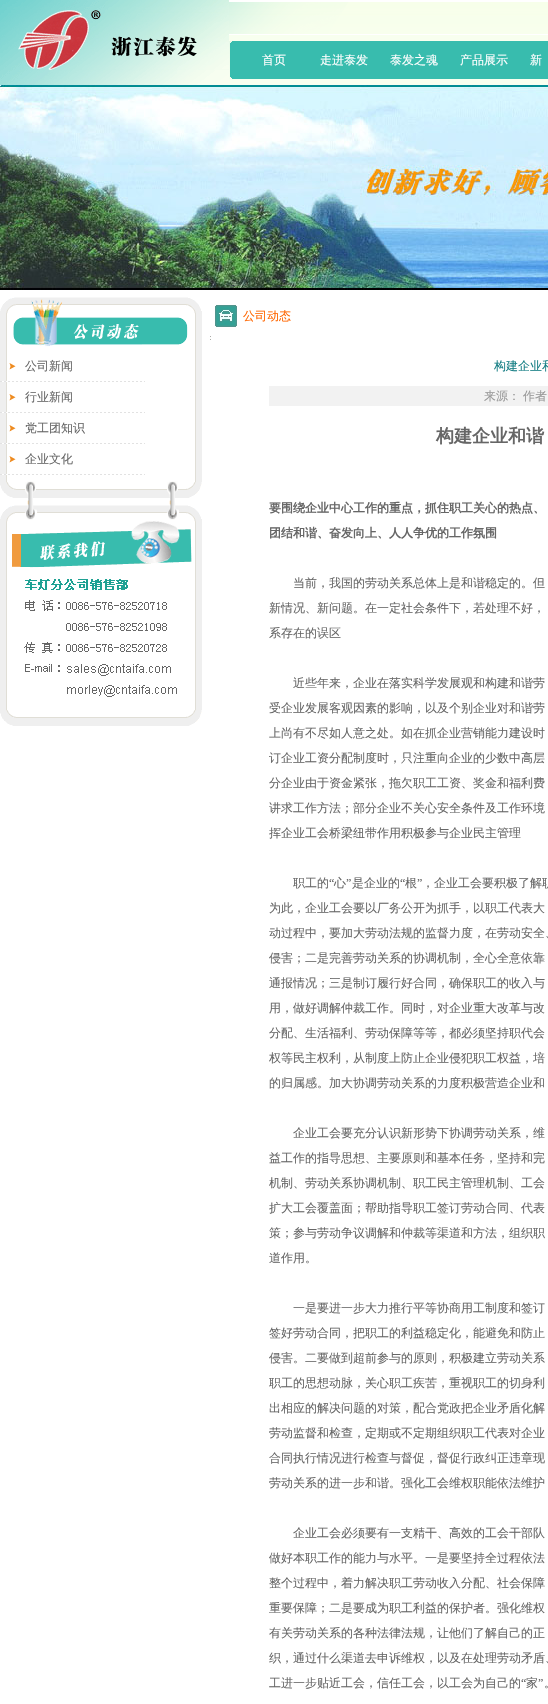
void draw(SkCanvas* c) {
SkPaint p;
p.setAntiAlias(true);
auto F=[&](const char* family, int weight, float size, bool italic = false){SkFontStyle style(weight, SkFontStyle::kNormal_Width,italic ? SkFontStyle::kItalic_Slant : SkFontStyle::kUpright_Slant);SkFont result(fontMgr->matchFamilyStyle(family, style), size);result.setSubpixel(true);return result;};
auto T=[&](const char* s, float x, float y, const SkFont& font){c->drawString(s, x, y, font, p);};
auto R=[&](float x, float y, float w, float h){c->drawRect(SkRect::MakeXYWH(x, y, w, h), p);};
auto I=[&](const char* path, float x, float y, float w, float h){auto image = SkImages::DeferredFromEncodedData(SkData::MakeFromFileName(path));c->drawImageRect(image, SkRect::MakeXYWH(x, y, w, h), SkSamplingOptions());};
c->clear(0xffffffff);
I("1.png",0,0,229,85);
I("2.png",229,2,319,32);
p.setColor(0xfff8ffef);
R(229,35,319,50);
I("3.png",229,41,10,38);
p.setColor(0xff38bcae);
R(239,41,309,38);
auto f1 = F("WenQuanYi Zen Hei",500,12);
p.setColor(0xffffffff);
T("首页",262,64,f1);
T("走进泰发",320,64,f1);
T("泰发之魂",390,64,f1);
T("产品展示",460,64,f1);
T("新",530,64,f1);
I("4.png",0,85,548,205);
I("5.png",0,297,202,54);
I("6.png",0,351,202,124);
I("7.png",9,363,7,7);
p.setColor(0xff666666);
T("公司新闻",25,370,f1);
I("8.png",0,381,145,1);
I("7.png",9,394,7,7);
T("行业新闻",25,401,f1);
I("8.png",0,412,145,1);
I("7.png",9,425,7,7);
T("党工团知识",25,432,f1);
I("8.png",0,443,145,1);
I("7.png",9,456,7,7);
T("企业文化",25,463,f1);
I("8.png",0,474,145,1);
I("9.png",0,475,202,251);
I("10.png",215,305,22,22);
p.setColor(0xffff6600);
T("公司动态",243,320,f1);
I("11.png",210,336,1,4);
p.setColor(0xff157e84);
T("构建企业和",494,370,f1);
p.setColor(0xfff2f2f2);
R(269,386,279,20);
p.setColor(0xff999999);
T("来源：",484,400,f1);
T("作者",523,400,f1);
auto f2 = F("WenQuanYi Zen Hei",700,18);
p.setColor(0xff666666);
T("构建企业和谐",436,442,f2);
auto f3 = F("WenQuanYi Zen Hei",700,12);
T("要围绕企业中心工作的重点，抓住职工关心的热点、",269,512,f3);
T("团结和谐、奋发向上、人人争优的工作氛围",269,537,f3);
T("当前，我国的劳动关系总体上是和谐稳定的。但",293,587,f1);
T("新情况、新问题。在一定社会条件下，若处理不好，",269,612,f1);
T("系存在的误区",269,637,f1);
T("近些年来，企业在落实科学发展观和构建和谐劳",293,687,f1);
T("受企业发展客观因素的影响，以及个别企业对和谐劳",269,712,f1);
T("上尚有不尽如人意之处。如在抓企业营销能力建设时",269,737,f1);
T("订企业工资分配制度时，只注重向企业的少数中高层",269,762,f1);
T("分企业由于资金紧张，拖欠职工工资、奖金和福利费",269,787,f1);
T("讲求工作方法；部分企业不关心安全条件及工作环境",269,812,f1);
T("挥企业工会桥梁纽带作用积极参与企业民主管理",269,837,f1);
T("职工的",293,887,f1);
auto f4 = F("Liberation Serif",400,12);
T("“",329,887,f4);
T("心",334,887,f1);
T("”",346,887,f4);
T("是企业的",352,887,f1);
T("“",400,887,f4);
T("根",405,887,f1);
T("”",417,887,f4);
T("，企业工会要积极了解职",422,887,f1);
T("为此，企业工会要以厂务公开为抓手，以职工代表大",269,912,f1);
T("动过程中，要加大劳动法规的监督力度，在劳动安全、",269,937,f1);
T("侵害；二是完善劳动关系的协调机制，全心全意依靠",269,962,f1);
T("通报情况；三是制订履行好合同，确保职工的收入与",269,987,f1);
T("用，做好调解仲裁工作。同时，对企业重大改革与改",269,1012,f1);
T("分配、生活福利、劳动保障等等，都必须坚持职代会",269,1037,f1);
T("权等民主权利，从制度上防止企业侵犯职工权益，培",269,1062,f1);
T("的归属感。加大协调劳动关系的力度积极营造企业和",269,1087,f1);
T("企业工会要充分认识新形势下协调劳动关系，维",293,1137,f1);
T("益工作的指导思想、主要原则和基本任务，坚持和完",269,1162,f1);
T("机制、劳动关系协调机制、职工民主管理机制、工会",269,1187,f1);
T("扩大工会覆盖面；帮助指导职工签订劳动合同、代表",269,1212,f1);
T("策；参与劳动争议调解和仲裁等渠道和方法，组织职",269,1237,f1);
T("道作用。",269,1262,f1);
T("一是要进一步大力推行平等协商用工制度和签订",293,1312,f1);
T("签好劳动合同，把职工的利益稳定化，能避免和防止",269,1337,f1);
T("侵害。二要做到超前参与的原则，积极建立劳动关系",269,1362,f1);
T("职工的思想动脉，关心职工疾苦，重视职工的切身利",269,1387,f1);
T("出相应的解决问题的对策，配合党政把企业矛盾化解",269,1412,f1);
T("劳动监督和检查，定期或不定期组织职工代表对企业",269,1437,f1);
T("合同执行情况进行检查与督促，督促行政纠正违章现",269,1462,f1);
T("劳动关系的进一步和谐。强化工会维权职能依法维护",269,1487,f1);
T("企业工会必须要有一支精干、高效的工会干部队",293,1537,f1);
T("做好本职工作的能力与水平。一是要坚持全过程依法",269,1562,f1);
T("整个过程中，着力解决职工劳动收入分配、社会保障",269,1587,f1);
T("重要保障；二是要成为职工利益的保护者。强化维权",269,1612,f1);
T("有关劳动关系的各种法律法规，让他们了解自己的正",269,1637,f1);
T("织，通过什么渠道去申诉维权，以及在处理劳动矛盾、",269,1662,f1);
T("工进一步贴近工会，信任工会，以工会为自己的",269,1687,f1);
T("“",521,1687,f4);
T("家",526,1687,f1);
T("”",538,1687,f4);
T("。",544,1687,f1);
}
